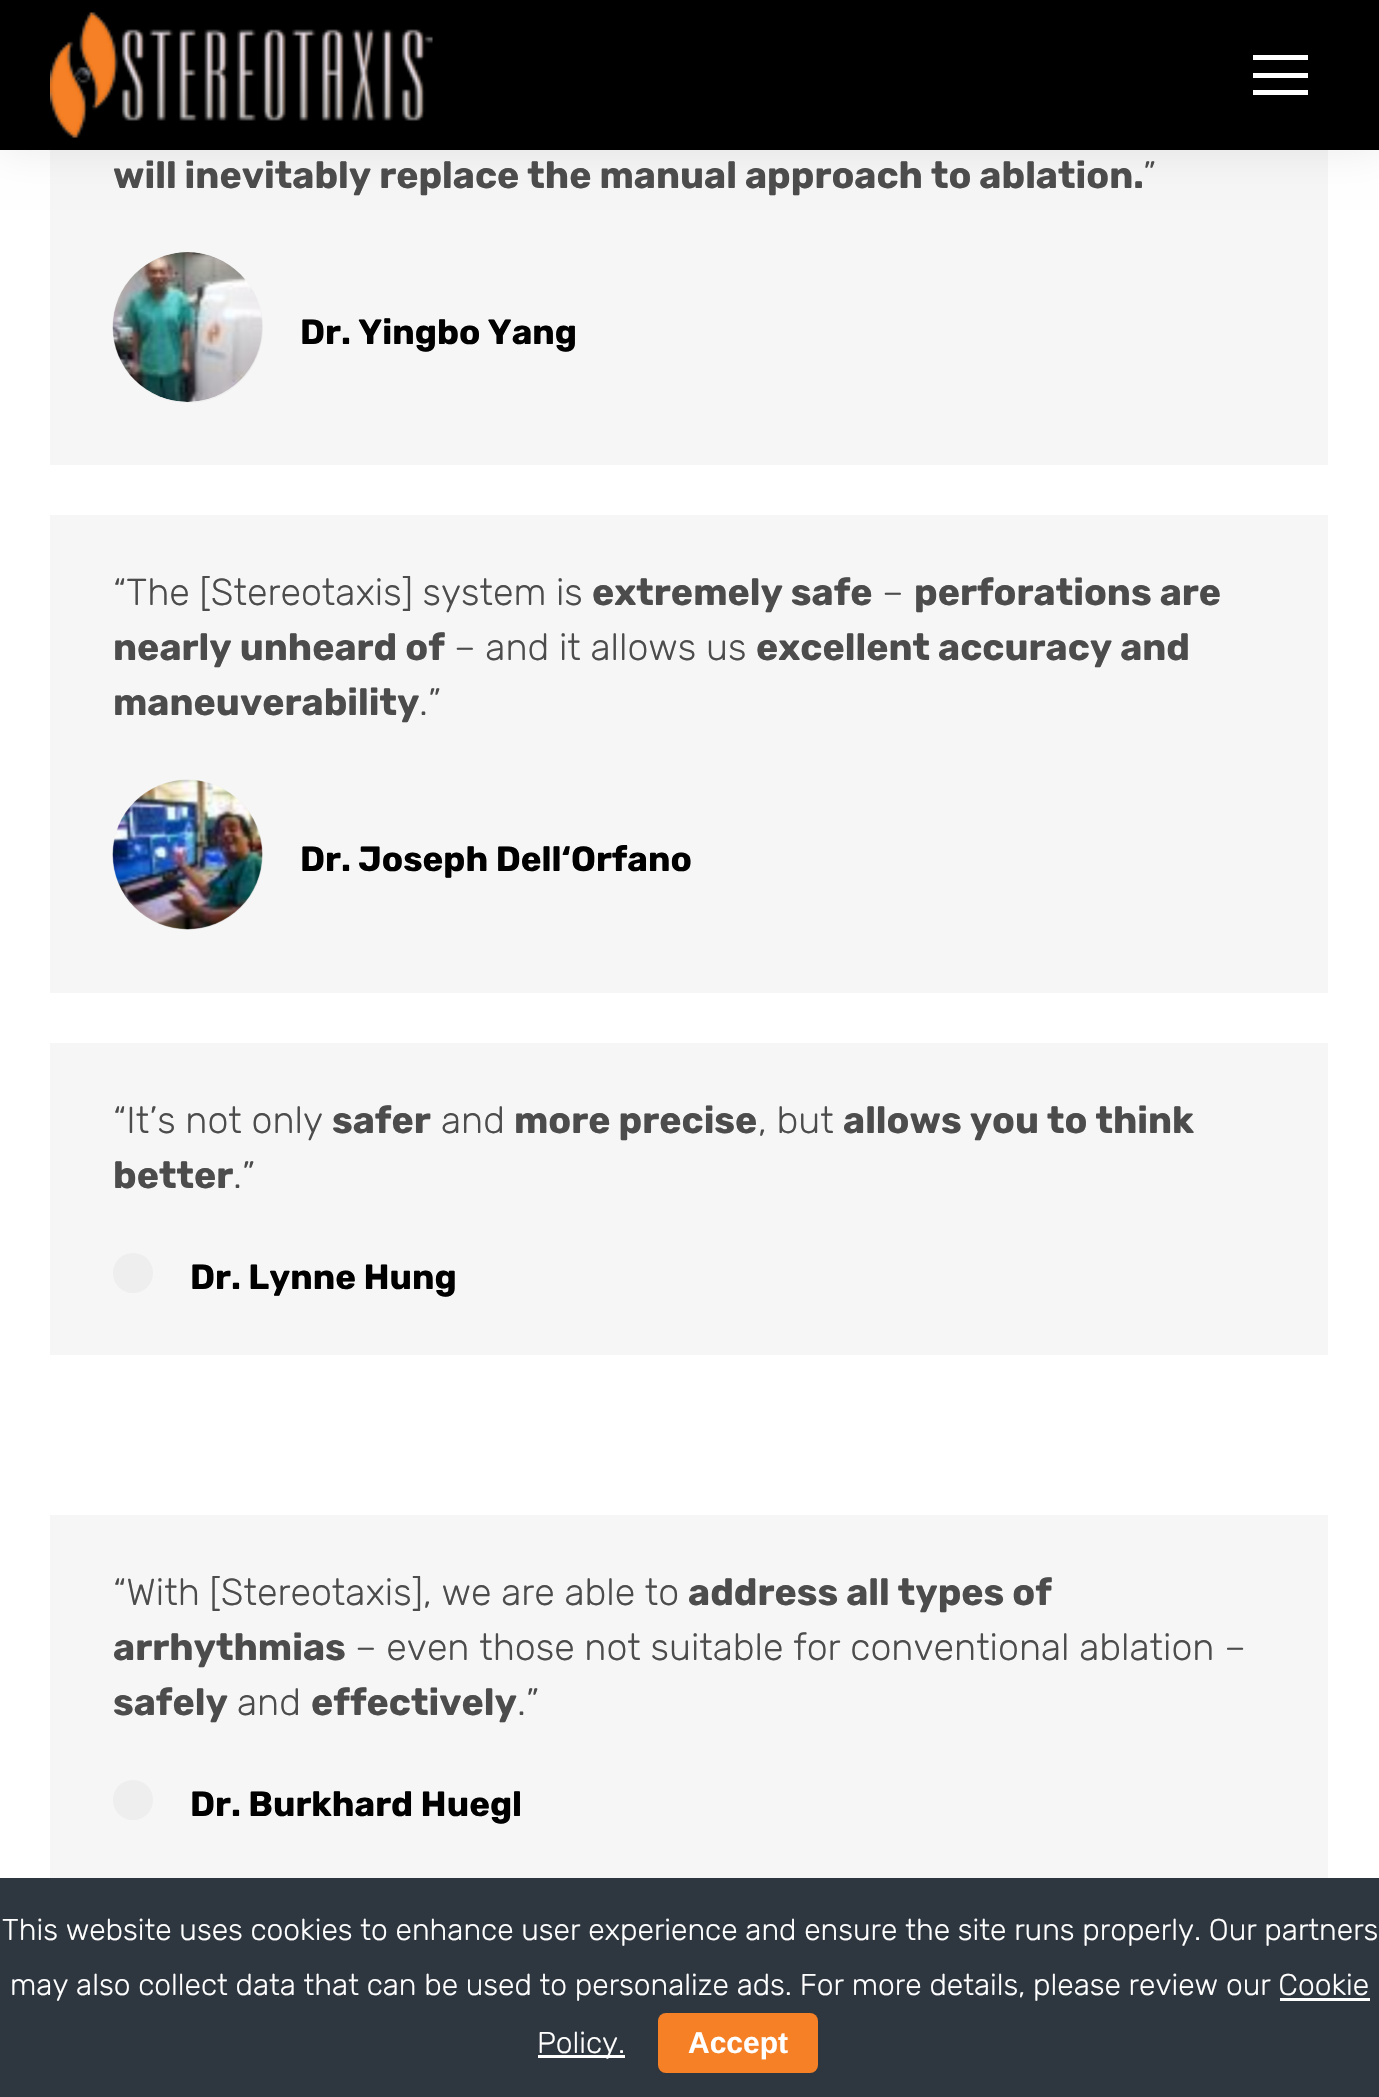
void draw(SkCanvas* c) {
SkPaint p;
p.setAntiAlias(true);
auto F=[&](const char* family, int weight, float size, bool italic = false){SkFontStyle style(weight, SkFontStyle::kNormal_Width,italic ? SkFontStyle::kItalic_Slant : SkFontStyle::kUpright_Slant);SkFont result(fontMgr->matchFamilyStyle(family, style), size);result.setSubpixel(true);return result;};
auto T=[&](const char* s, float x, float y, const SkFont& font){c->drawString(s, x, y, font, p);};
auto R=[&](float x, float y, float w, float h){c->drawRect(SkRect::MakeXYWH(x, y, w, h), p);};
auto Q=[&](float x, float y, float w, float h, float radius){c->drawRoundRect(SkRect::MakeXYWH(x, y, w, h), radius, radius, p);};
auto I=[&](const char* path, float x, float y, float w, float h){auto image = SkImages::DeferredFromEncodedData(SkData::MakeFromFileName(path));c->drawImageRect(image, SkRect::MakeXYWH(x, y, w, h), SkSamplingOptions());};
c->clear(0xffffffff);
p.setColor(0xfff6f6f6);
R(50,150,1278,315);
p.setColor(0x12000000);
p.setMaskFilter(SkMaskFilter::MakeBlur(kNormal_SkBlurStyle, 19));
c->drawRect(SkRect::MakeXYWH(-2,-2,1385,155),p);
p.setMaskFilter(nullptr);
p.setColor(0xff000000);
R(0,0,1379,150);
I("1.png",50,12,383,126);
p.setColor(0xffffffff);
R(1253,55,55,5);
R(1253,73,55,5);
R(1253,90,55,5);
auto f1 = F("Rubik",700,37.5);
p.setColor(0xff4c4c4c);
T("will inevitably replace the manual approach to ablation.",113,188,f1);
auto f2 = F("Rubik",300,37.5);
T("”",1143,188,f2);
p.setColor(0xffeeeeee);
c->drawCircle(188,328,75,p);
I("2.png",112,252,151,150);
auto f3 = F("Rubik",700,35);
p.setColor(0xff000000);
T("Dr. Yingbo Yang",300,344,f3);
p.setColor(0xfff6f6f6);
R(50,515,1278,478);
p.setColor(0xff4c4c4c);
T("“The [Stereotaxis] system is",113,605,f2);
T("extremely safe",592,605,f1);
T("–",882,605,f2);
T("perforations are",914,605,f1);
T("nearly unheard of",113,660,f1);
T("– and it allows us",454,660,f2);
T("excellent accuracy and",756,660,f1);
T("maneuverability",113,715,f1);
T(".”",419,715,f2);
p.setColor(0xffeeeeee);
c->drawCircle(188,855,75,p);
I("3.png",112,779,151,151);
p.setColor(0xff000000);
T("Dr. Joseph Dell‘Orfano",300,871,f3);
p.setColor(0xfff6f6f6);
R(50,1043,1278,312);
p.setColor(0xff4c4c4c);
T("“It’s not only",113,1133,f2);
T("safer",332,1133,f1);
T("and",441,1133,f2);
T("more precise",514,1133,f1);
T(", but",758,1133,f2);
T("allows you to think",843,1133,f1);
T("better",113,1188,f1);
T(".”",233,1188,f2);
p.setColor(0xffeeeeee);
c->drawCircle(133,1273,20,p);
p.setColor(0xff000000);
T("Dr. Lynne Hung",190,1289,f3);
p.setColor(0xfff6f6f6);
R(50,1515,1278,363);
p.setColor(0xff4c4c4c);
T("“With [Stereotaxis], we are able to",113,1605,f2);
T("address all types of",688,1605,f1);
T("arrhythmias",113,1660,f1);
T("– even those not suitable for conventional ablation –",355,1660,f2);
T("safely",113,1715,f1);
T("and",237,1715,f2);
T("effectively",311,1715,f1);
T(".”",517,1715,f2);
p.setColor(0xffeeeeee);
c->drawCircle(133,1800,20,p);
p.setColor(0xff000000);
T("Dr. Burkhard Huegl",190,1816,f3);
p.setColor(0xff2e363f);
R(0,1878,1379,219);
auto f4 = F("Rubik",300,30);
p.setColor(0xffffffff);
T("This website uses cookies to enhance user experience and ensure the site runs properly. Our partners",2,1940,f4);
T("may also collect data that can be used to personalize ads. For more details, please review our Cookie",10,1995,f4);
R(538,2055,87,3);
T("Policy.",537,2053,f4);
R(1280,1998,90,3);
p.setColor(0xfff58026);
Q(658,2013,160,60,8);
auto f5 = F("Liberation Sans",700,30);
p.setColor(0xffffffff);
T("Accept",688,2053,f5);
}
